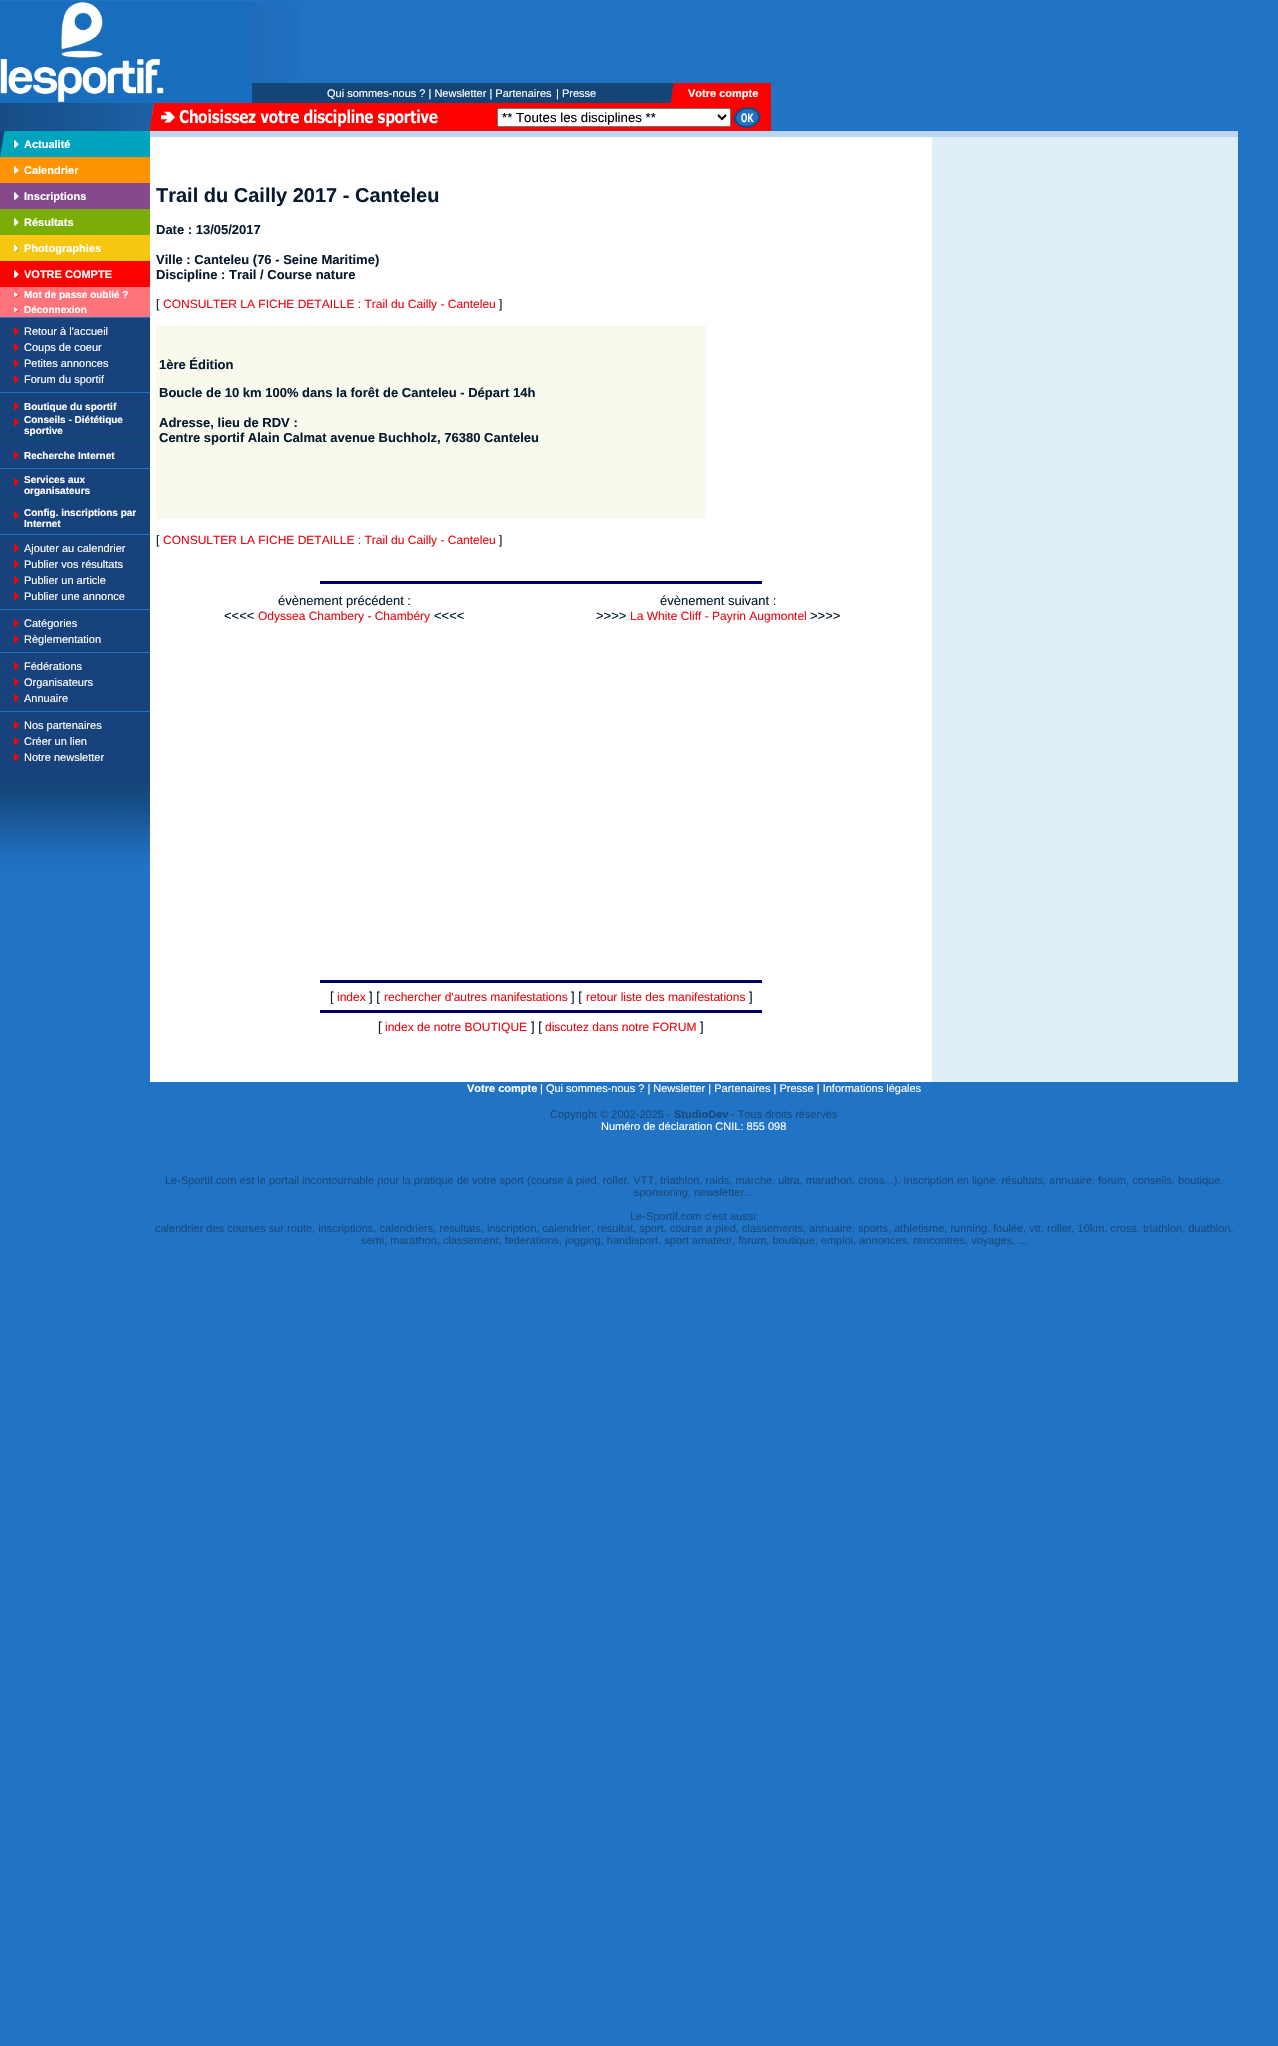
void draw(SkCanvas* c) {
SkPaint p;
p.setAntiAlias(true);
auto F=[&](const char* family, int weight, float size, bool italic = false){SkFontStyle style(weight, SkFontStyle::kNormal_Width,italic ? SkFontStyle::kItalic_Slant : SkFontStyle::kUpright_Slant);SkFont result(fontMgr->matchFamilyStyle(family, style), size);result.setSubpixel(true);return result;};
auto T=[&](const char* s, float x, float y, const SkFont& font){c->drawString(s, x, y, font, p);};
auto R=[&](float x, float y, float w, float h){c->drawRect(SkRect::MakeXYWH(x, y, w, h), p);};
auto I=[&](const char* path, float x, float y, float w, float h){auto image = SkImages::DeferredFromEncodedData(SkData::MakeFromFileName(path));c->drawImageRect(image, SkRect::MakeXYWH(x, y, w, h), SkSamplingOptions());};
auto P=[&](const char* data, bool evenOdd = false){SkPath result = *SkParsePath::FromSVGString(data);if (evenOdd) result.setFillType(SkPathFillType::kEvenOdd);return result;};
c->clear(0xff2173c6);
p.setColor(0xff186dbd);
R(0,1,252,102);
I("1.png",0,2,164,101);
I("2.png",252,1,50,10);
I("3.png",252,11,50,60);
I("4.png",252,71,51,12);
p.setColor(0xff144577);
R(252,83,419,20);
auto f1 = F("Liberation Sans",400,11);
p.setColor(0xffffffff);
T("Qui sommes-nous ? | Newsletter | Partenaires",327,97,f1);
T("| Presse",556,97,f1);
I("5.png",671,83,4,20);
p.setColor(0xffff0000);
R(675,83,96,20);
auto f2 = F("Liberation Sans",700,11);
p.setColor(0xffffffff);
T("Votre compte",688,97,f2);
I("6.png",0,103,156,28);
p.setColor(0xffff0000);
R(156,103,615,28);
I("7.png",161,109,277,18);
p.setColor(0xffffffff);
c->drawRoundRect(SkRect::MakeXYWH(497.5,108.5,233,18),1.5,1.5,p);
p.setStroke(true);
p.setStrokeWidth(1);
p.setColor(0xff767676);
c->drawRoundRect(SkRect::MakeXYWH(497.5,108.5,233,18),1.5,1.5,p);
p.setStrokeWidth(2);
p.setColor(0xff000000);
c->drawPath(P("M718 115l4 4l4-4"),p);
auto f3 = F("Liberation Sans",400,13.25);
p.setStroke(false);
T("** Toutes les disciplines **",502,122,f3);
I("8.png",733,107,28,21);
p.setColor(0xff18427b);
R(0,131,4,20);
I("9.png",0,131,9,26);
p.setColor(0xff00a5bd);
R(9,131,141,26);
I("10.png",14,140,5,8);
p.setColor(0xffffffff);
T("Actualité",24,148,f2);
p.setColor(0xffff9400);
R(0,157,150,26);
I("11.png",14,166,5,8);
p.setColor(0xffffffff);
T("Calendrier",24,174,f2);
p.setColor(0xff844a8c);
R(0,183,150,26);
I("12.png",14,192,5,8);
p.setColor(0xffffffff);
T("Inscriptions",24,200,f2);
p.setColor(0xff7bad08);
R(0,209,150,26);
I("13.png",14,218,5,8);
p.setColor(0xffffffff);
T("Résultats",24,226,f2);
p.setColor(0xfff7c610);
R(0,235,150,26);
I("14.png",14,244,5,8);
p.setColor(0xffffffff);
T("Photographies",24,252,f2);
p.setColor(0xffff0000);
R(0,261,150,26);
I("15.png",14,270,5,8);
p.setColor(0xffffffff);
T("VOTRE COMPTE",24,278,f2);
p.setColor(0xffff737b);
R(0,287,150,15);
I("16.png",14,292,5,5);
auto f4 = F("Liberation Sans",700,10);
p.setColor(0xffffffff);
T("Mot de passe oublié ?",24,298,f4);
p.setColor(0xffff737b);
R(0,302,150,15);
I("16.png",14,307,5,5);
p.setColor(0xffffffff);
T("Déconnexion",24,313,f4);
p.setColor(0xff18427b);
R(0,318,150,5);
R(0,323,150,16);
I("17.png",14,327,5,8);
p.setColor(0xffffffff);
T("Retour à l'accueil",24,335,f1);
p.setColor(0xff18427b);
R(0,339,150,16);
I("17.png",14,343,5,8);
p.setColor(0xffffffff);
T("Coups de coeur",24,351,f1);
p.setColor(0xff18427b);
R(0,355,150,16);
I("17.png",14,359,5,8);
p.setColor(0xffffffff);
T("Petites annonces",24,367,f1);
p.setColor(0xff18427b);
R(0,371,150,27);
I("17.png",14,375,5,8);
p.setColor(0xffffffff);
T("Forum du sportif",24,383,f1);
p.setColor(0xff2172c5);
R(0,392,150,1);
p.setColor(0xff18427b);
R(0,398,150,16);
I("17.png",14,402,5,8);
p.setColor(0xffffffff);
T("Boutique du sportif",24,410,f4);
p.setColor(0xff18427b);
R(0,414,150,22);
I("17.png",14,418,5,8);
p.setColor(0xffffffff);
T("Conseils - Diététique",24,423,f4);
T("sportive",24,434,f4);
p.setColor(0xff18427b);
R(0,442,150,5);
p.setColor(0xff144577);
R(0,436,150,6);
p.setColor(0xff18427b);
R(0,447,150,27);
I("17.png",14,451,5,8);
p.setColor(0xffffffff);
T("Recherche Internet",24,459,f4);
p.setColor(0xff2172c5);
R(0,468,150,1);
p.setColor(0xff18427b);
R(0,474,150,22);
I("17.png",14,478,5,8);
p.setColor(0xffffffff);
T("Services aux",24,483,f4);
T("organisateurs",24,494,f4);
p.setColor(0xff18427b);
R(0,502,150,5);
p.setColor(0xff144577);
R(0,496,150,6);
p.setColor(0xff18427b);
R(0,507,150,33);
I("17.png",14,511,5,8);
p.setColor(0xffffffff);
T("Config. inscriptions par",24,516,f4);
T("Internet",24,527,f4);
p.setColor(0xff2172c5);
R(0,534,150,1);
p.setColor(0xff18427b);
R(0,540,150,16);
I("17.png",14,544,5,8);
p.setColor(0xffffffff);
T("Ajouter au calendrier",24,552,f1);
p.setColor(0xff18427b);
R(0,556,150,16);
I("17.png",14,560,5,8);
p.setColor(0xffffffff);
T("Publier vos résultats",24,568,f1);
p.setColor(0xff18427b);
R(0,572,150,16);
I("17.png",14,576,5,8);
p.setColor(0xffffffff);
T("Publier un article",24,584,f1);
p.setColor(0xff18427b);
R(0,588,150,27);
I("17.png",14,592,5,8);
p.setColor(0xffffffff);
T("Publier une annonce",24,600,f1);
p.setColor(0xff2172c5);
R(0,609,150,1);
p.setColor(0xff18427b);
R(0,615,150,16);
I("17.png",14,619,5,8);
p.setColor(0xffffffff);
T("Catégories",24,627,f1);
p.setColor(0xff18427b);
R(0,631,150,27);
I("17.png",14,635,5,8);
p.setColor(0xffffffff);
T("Règlementation",24,643,f1);
p.setColor(0xff2172c5);
R(0,652,150,1);
p.setColor(0xff18427b);
R(0,658,150,16);
I("17.png",14,662,5,8);
p.setColor(0xffffffff);
T("Fédérations",24,670,f1);
p.setColor(0xff18427b);
R(0,674,150,16);
I("17.png",14,678,5,8);
p.setColor(0xffffffff);
T("Organisateurs",24,686,f1);
p.setColor(0xff18427b);
R(0,690,150,27);
I("17.png",14,694,5,8);
p.setColor(0xffffffff);
T("Annuaire",24,702,f1);
p.setColor(0xff2172c5);
R(0,711,150,1);
p.setColor(0xff18427b);
R(0,717,150,16);
I("17.png",14,721,5,8);
p.setColor(0xffffffff);
T("Nos partenaires",24,729,f1);
p.setColor(0xff18427b);
R(0,733,150,16);
I("17.png",14,737,5,8);
p.setColor(0xffffffff);
T("Créer un lien",24,745,f1);
p.setColor(0xff18427b);
R(0,749,150,34);
I("17.png",14,753,5,8);
p.setColor(0xffffffff);
T("Notre newsletter",24,761,f1);
I("18.png",0,783,150,87);
p.setColor(0xffbdd6ef);
R(150,131,1088,6);
p.setColor(0xffdeeff7);
R(932,137,306,945);
p.setColor(0xffffffff);
R(150,137,782,945);
auto f5 = F("Liberation Sans",700,20);
p.setColor(0xff071a2e);
T("Trail du Cailly 2017 - Canteleu",156,202,f5);
auto f6 = F("Liberation Sans",700,13);
T("Date : 13/05/2017",156,234,f6);
T("Ville : Canteleu (76 - Seine Maritime)",156,264,f6);
T("Discipline : Trail / Course nature",156,279,f6);
auto f7 = F("Liberation Sans",400,12);
T("[",156,308,f7);
p.setColor(0xffeb0a12);
T("CONSULTER LA FICHE DETAILLE : Trail du Cailly - Canteleu",163,308,f7);
p.setColor(0xff071a2e);
T("]",499,308,f7);
p.setColor(0xfff8faed);
R(156,325,550,194);
p.setColor(0xff071a2e);
T("1ère Édition",159,369,f6);
T("Boucle de 10 km 100% dans la forêt de Canteleu - Départ 14h",159,397,f6);
T("Adresse, lieu de RDV :",159,427,f6);
T("Centre sportif Alain Calmat avenue Buchholz, 76380 Canteleu",159,442,f6);
T("[",156,544,f7);
p.setColor(0xffeb0a12);
T("CONSULTER LA FICHE DETAILLE : Trail du Cailly - Canteleu",163,544,f7);
p.setColor(0xff071a2e);
T("]",499,544,f7);
p.setColor(0xff000066);
R(320,581,442,3);
auto f8 = F("Liberation Sans",400,13);
p.setColor(0xff071a2e);
T("évènement précédent :",278,605,f8);
T("<<<<",224,620,f8);
p.setColor(0xffeb0a12);
T("Odyssea Chambery - Chambéry",258,620,f7);
p.setColor(0xff071a2e);
T("<<<<",434,620,f8);
T("évènement suivant :",660,605,f8);
T(">>>>",596,620,f8);
p.setColor(0xffeb0a12);
T("La White Cliff - Payrin Augmontel",630,620,f7);
p.setColor(0xff071a2e);
T(">>>>",810,620,f8);
p.setColor(0xff000066);
R(320,980,442,3);
p.setColor(0xff071a2e);
T("[",330,1001,f8);
p.setColor(0xffeb0a12);
T("index",337,1001,f7);
p.setColor(0xff071a2e);
T("] [",369,1001,f8);
p.setColor(0xffeb0a12);
T("rechercher d'autres manifestations",384,1001,f7);
p.setColor(0xff071a2e);
T("] [",571,1001,f8);
p.setColor(0xffeb0a12);
T("retour liste des manifestations",586,1001,f7);
p.setColor(0xff071a2e);
T("]",749,1001,f8);
p.setColor(0xff000066);
R(320,1010,442,3);
p.setColor(0xff071a2e);
T("[",378,1031,f8);
p.setColor(0xffeb0a12);
T("index de notre BOUTIQUE",385,1031,f7);
p.setColor(0xff071a2e);
T("] [",531,1031,f8);
p.setColor(0xffeb0a12);
T("discutez dans notre FORUM",545,1031,f7);
p.setColor(0xff071a2e);
T("]",700,1031,f8);
p.setColor(0xffffffff);
T("Votre compte",467,1092,f2);
T("| Qui sommes-nous ? | Newsletter | Partenaires | Presse | Informations légales",540,1092,f1);
p.setColor(0xff184a7b);
T("Copyright © 2002-2025 -",550,1118,f1);
T("StudioDev",674,1118,f2);
T("- Tous droits réservés",731,1118,f1);
p.setColor(0xffffffff);
T("Numéro de déclaration CNIL: 855 098",601,1130,f1);
p.setColor(0xff184a7b);
T("Le-Sportif.com est le portail incontournable pour la pratique de votre sport (course à pied, roller, VTT, triathlon, raids, marche, ultra, marathon, cross...). Inscription en ligne, résultats, annuaire, forum, conseils, boutique,",165,1184,f1);
T("sponsoring, newsletter...",634,1196,f1);
T("Le-Sportif.com c'est aussi:",630,1220,f1);
T("calendrier des courses sur route, inscriptions, calendriers, resultats, inscription, calendrier, resultat, sport, course a pied, classements, annuaire, sports, athletisme, running, foulée, vtt, roller, 10km, cross, triathlon, duathlon,",155,1232,f1);
T("semi, marathon, classement, federations, jogging, handisport, sport amateur, forum, boutique, emploi, annonces, rencontres, voyages, ...",361,1244,f1);
}
